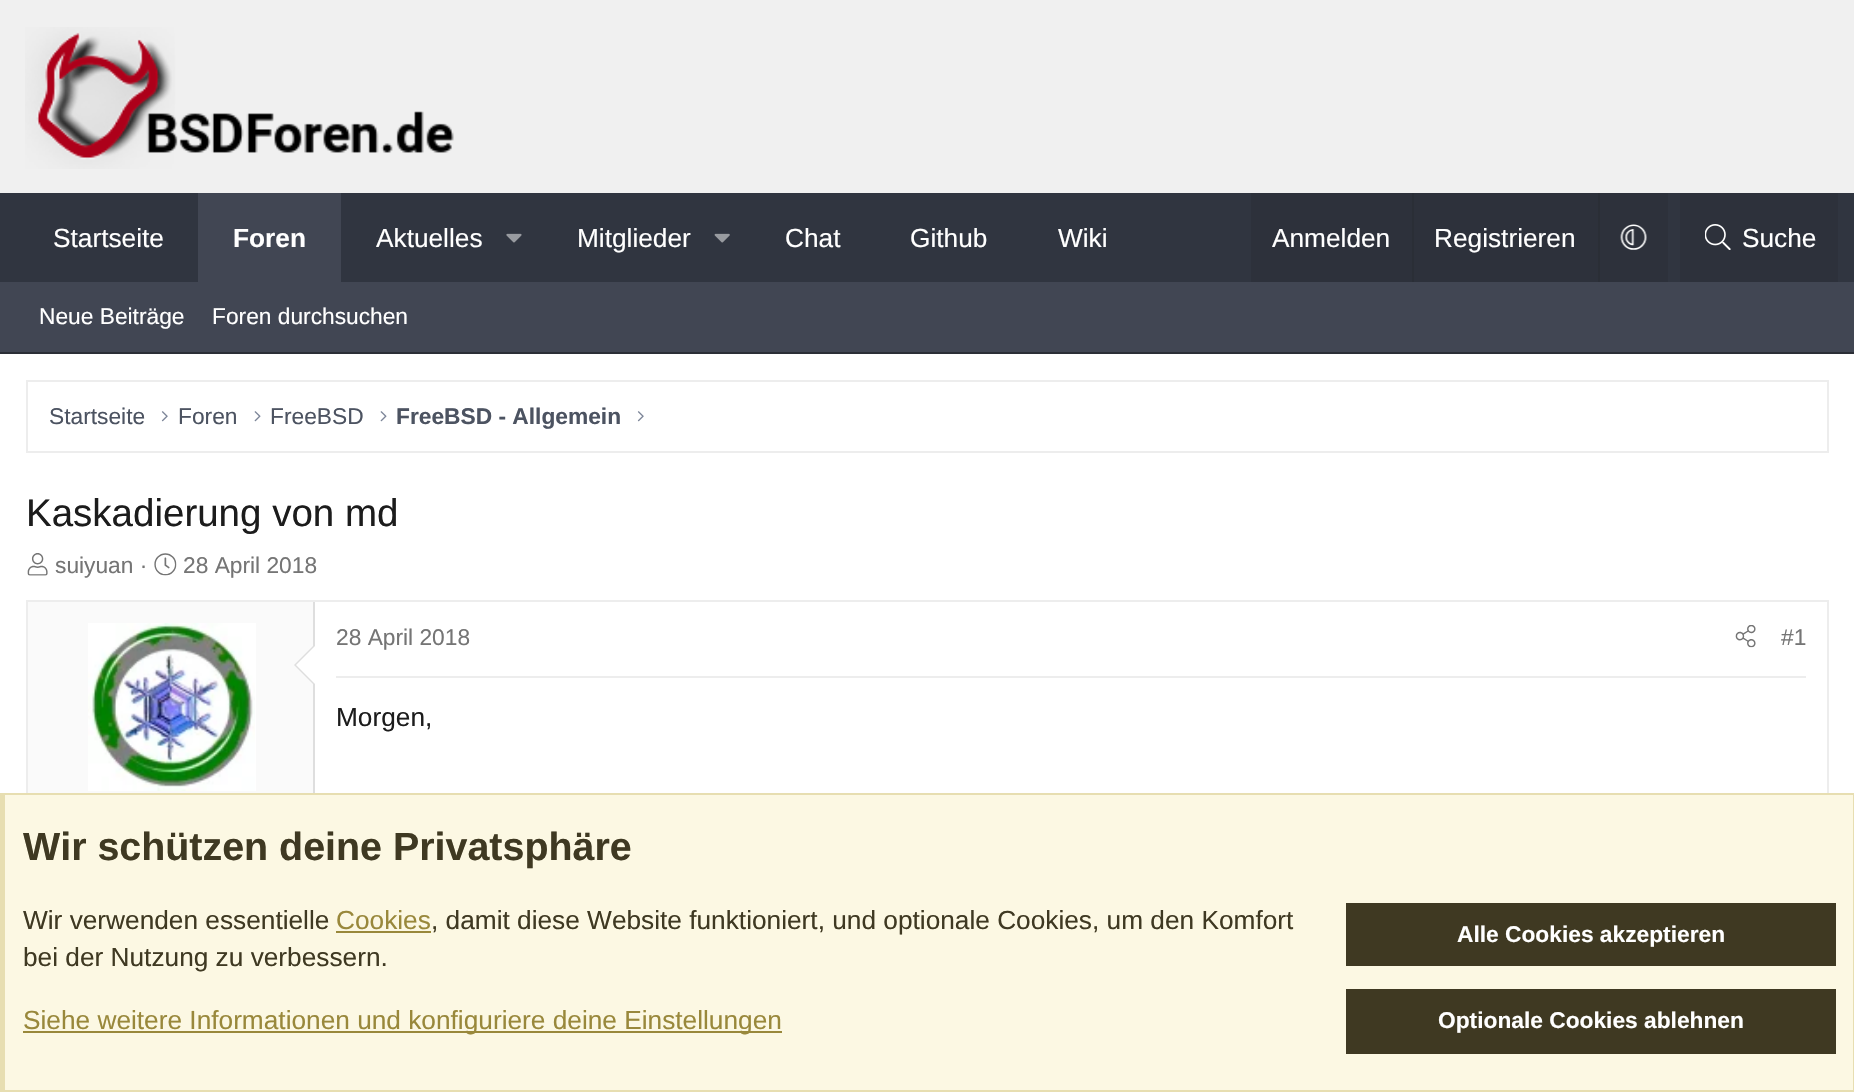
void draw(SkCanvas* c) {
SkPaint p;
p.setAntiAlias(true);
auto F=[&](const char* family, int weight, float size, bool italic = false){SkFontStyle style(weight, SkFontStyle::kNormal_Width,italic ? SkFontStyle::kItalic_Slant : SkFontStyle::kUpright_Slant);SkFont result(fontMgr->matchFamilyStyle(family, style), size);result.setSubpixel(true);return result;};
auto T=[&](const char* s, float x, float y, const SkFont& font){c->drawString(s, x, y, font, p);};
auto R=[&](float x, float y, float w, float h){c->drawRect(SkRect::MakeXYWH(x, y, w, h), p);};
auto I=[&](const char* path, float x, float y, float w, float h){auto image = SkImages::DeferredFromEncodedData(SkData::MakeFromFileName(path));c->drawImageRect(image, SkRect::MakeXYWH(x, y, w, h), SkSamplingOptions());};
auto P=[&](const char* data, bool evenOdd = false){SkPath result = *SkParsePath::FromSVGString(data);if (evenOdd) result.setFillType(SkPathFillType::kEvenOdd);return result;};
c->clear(0xfff0f0f0);
I("1.png",25,27,429,142);
p.setColor(0xff303540);
R(0,193,1854,89);
auto f1 = F("Liberation Sans",400,26.25);
p.setColor(0xffffffff);
T("Startseite",53,247,f1);
p.setColor(0xff414653);
R(198,193,143,89);
auto f2 = F("Liberation Sans",700,26.25);
p.setColor(0xffffffff);
T("Foren",233,247,f2);
T("Aktuelles",376,247,f1);
I("2.png",506,233,16,10);
T("Mitglieder",577,247,f1);
I("3.png",714,233,16,10);
T("Chat",785,247,f1);
T("Github",910,247,f1);
T("Wiki",1058,247,f1);
p.setColor(0xff2d313b);
R(1251,193,417,89);
p.setColor(0xffffffff);
T("Anmelden",1272,247,f1);
p.setColor(0xff2a2e36);
R(1412,193,2,89);
p.setColor(0xffffffff);
T("Registrieren",1434,247,f1);
p.setColor(0xff2a2e36);
R(1598,193,2,89);
I("4.png",1620,224,27,26);
p.setColor(0xff2d313b);
R(1680,193,158,89);
I("5.png",1705,224,26,26);
p.setColor(0xffffffff);
T("Suche",1742,247,f1);
p.setColor(0xff414653);
R(0,282,1854,70);
p.setColor(0xff2b2e36);
R(0,352,1854,2);
auto f3 = F("Liberation Sans",400,22.75);
p.setColor(0xffffffff);
T("Neue Beiträge",39,324,f3);
T("Foren durchsuchen",212,324,f3);
R(0,354,1854,439);
p.setStroke(true);
p.setStrokeWidth(2);
p.setColor(0xffededed);
c->drawRect(SkRect::MakeXYWH(27,381,1801,71),p);
p.setStroke(false);
p.setColor(0xff4c5361);
T("Startseite",49,424,f3);
I("6.png",161,411,7,11);
T("Foren",178,424,f3);
I("7.png",254,411,7,11);
T("FreeBSD",270,424,f3);
I("7.png",380,411,7,11);
auto f4 = F("Liberation Sans",700,22.75);
T("FreeBSD - Allgemein",396,424,f4);
I("6.png",637,411,7,11);
auto f5 = F("Liberation Sans",400,38.5);
p.setColor(0xff1c1c1c);
T("Kaskadierung von md",26,526,f5);
I("8.png",27,553,21,23);
p.setColor(0xff757575);
T("suiyuan ·",55,573,f3);
I("9.png",154,553,23,23);
T("28 April 2018",183,573,f3);
p.setStroke(true);
p.setColor(0xffededed);
c->drawRect(SkRect::MakeXYWH(27,601,1801,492),p);
p.setStroke(false);
p.setColor(0xfffafafa);
R(28,602,285,191);
p.setColor(0xffdedede);
R(313,602,2,191);
p.setColor(0xffffffff);
R(255,623,1,168);
I("10.png",88,623,167,168);
p.setColor(0xffdedede);
c->drawPath(P("M315 644v42l-21-21z"),p);
p.setColor(0xffffffff);
c->drawPath(P("M315 646v38l-19-19z"),p);
p.setColor(0xffededed);
R(336,676,1470,2);
p.setColor(0xff757575);
T("28 April 2018",336,645,f3);
I("11.png",1735,625,21,23);
T("#1",1781,645,f3);
p.setColor(0xff1c1c1c);
T("Morgen,",336,726,f1);
p.setColor(0xfffcf8e3);
R(5,795,1848,295);
p.setColor(0xffe7deb1);
R(0,793,1854,2);
R(1853,793,1,299);
R(0,1090,1854,2);
R(0,793,5,299);
auto f6 = F("Liberation Sans",700,39.4);
p.setColor(0xff3f3922);
T("Wir schützen deine Privatsphäre",23,860,f6);
T("Wir verwenden essentielle",23,929,f1);
p.setColor(0xff99883b);
T("Cookies",336,929,f1);
R(336,931,95,2);
p.setColor(0xff3f3922);
T(", damit diese Website funktioniert, und optionale Cookies, um den Komfort",431,929,f1);
T("bei der Nutzung zu verbessern.",23,966,f1);
p.setColor(0xff99883b);
R(23,1031,759,2);
T("Siehe weitere Informationen und konfiguriere deine Einstellungen",23,1029,f1);
p.setColor(0xff3f3922);
R(1346,903,490,63);
p.setColor(0xffffffff);
T("Alle Cookies akzeptieren",1457,942,f4);
p.setColor(0xff3f3922);
R(1346,989,490,65);
p.setColor(0xffffffff);
T("Optionale Cookies ablehnen",1438,1028,f4);
}
